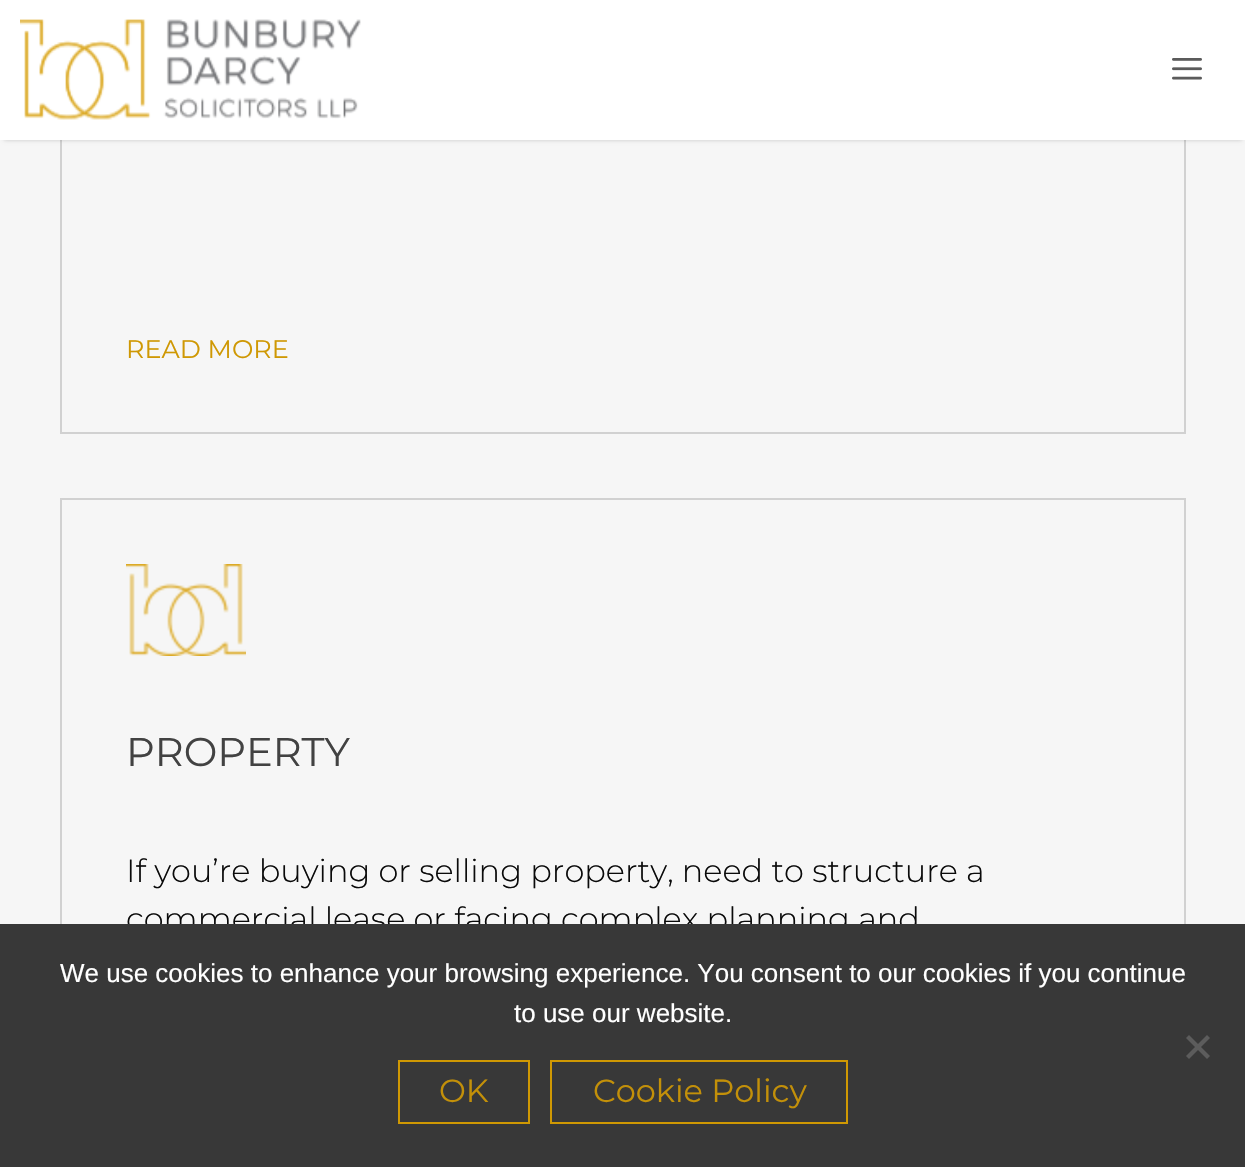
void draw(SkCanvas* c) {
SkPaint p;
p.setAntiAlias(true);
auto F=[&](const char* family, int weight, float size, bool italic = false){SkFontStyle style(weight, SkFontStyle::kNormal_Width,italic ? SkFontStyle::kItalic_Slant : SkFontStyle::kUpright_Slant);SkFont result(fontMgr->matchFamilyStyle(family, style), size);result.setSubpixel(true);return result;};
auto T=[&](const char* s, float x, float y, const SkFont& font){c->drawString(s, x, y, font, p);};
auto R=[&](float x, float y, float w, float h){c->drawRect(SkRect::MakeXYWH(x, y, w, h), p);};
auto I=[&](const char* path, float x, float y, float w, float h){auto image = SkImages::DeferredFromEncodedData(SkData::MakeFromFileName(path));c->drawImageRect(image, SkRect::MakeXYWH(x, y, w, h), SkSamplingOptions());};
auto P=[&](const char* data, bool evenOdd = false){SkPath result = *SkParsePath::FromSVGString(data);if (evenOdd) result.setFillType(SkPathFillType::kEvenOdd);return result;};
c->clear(0xfff6f6f6);
p.setStroke(true);
p.setStrokeWidth(2);
p.setColor(0xffd1d1d1);
c->drawRect(SkRect::MakeXYWH(61,-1,1124,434),p);
p.setStroke(false);
p.setColor(0x33000000);
p.setMaskFilter(SkMaskFilter::MakeBlur(kNormal_SkBlurStyle, 2));
c->drawRect(SkRect::MakeXYWH(4,8,1238,132),p);
p.setMaskFilter(nullptr);
p.setColor(0xffffffff);
R(0,0,1245,140);
I("1.png",20,19,341,101);
I("2.png",1172,58,30,22);
auto f1 = F("Montserrat",400,25.5);
p.setColor(0xffcf9803);
T("READ MORE",126,358,f1);
p.setStroke(true);
p.setColor(0xffd1d1d1);
c->drawRect(SkRect::MakeXYWH(61,499,1124,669),p);
I("3.png",126,564,120,92);
auto f2 = F("Montserrat",400,40);
p.setStroke(false);
p.setColor(0xff424242);
T("PROPERTY",126,766,f2);
auto f3 = F("Montserrat",300,32);
p.setColor(0xff0a0a0a);
T("If you’re buying or selling property, need to structure a",126,882,f3);
T("commercial lease or facing complex planning and",126,930,f3);
p.setColor(0xff383838);
R(0,924,1245,243);
auto f4 = F("Liberation Sans",400,26);
p.setColor(0xffffffff);
T("We use cookies to enhance your browsing experience. You consent to our cookies if you continue",60,982,f4);
T("to use our website.",514,1022,f4);
p.setColor(0xff5c5c5c);
c->drawPath(P("M1207 1035l3 3l-21 21l-3-3z"),p);
c->drawPath(P("M1186 1038l3-3l21 21l-3 3z"),p);
p.setStroke(true);
p.setColor(0xffcf9803);
c->drawRect(SkRect::MakeXYWH(399,1061,130,62),p);
auto f5 = F("Montserrat",400,32);
p.setStroke(false);
p.setColor(0xffc39009);
T("OK",439,1102,f5);
p.setStroke(true);
p.setColor(0xffcf9803);
c->drawRect(SkRect::MakeXYWH(551,1061,296,62),p);
p.setStroke(false);
p.setColor(0xffc39009);
T("Cookie Policy",593,1102,f5);
}
